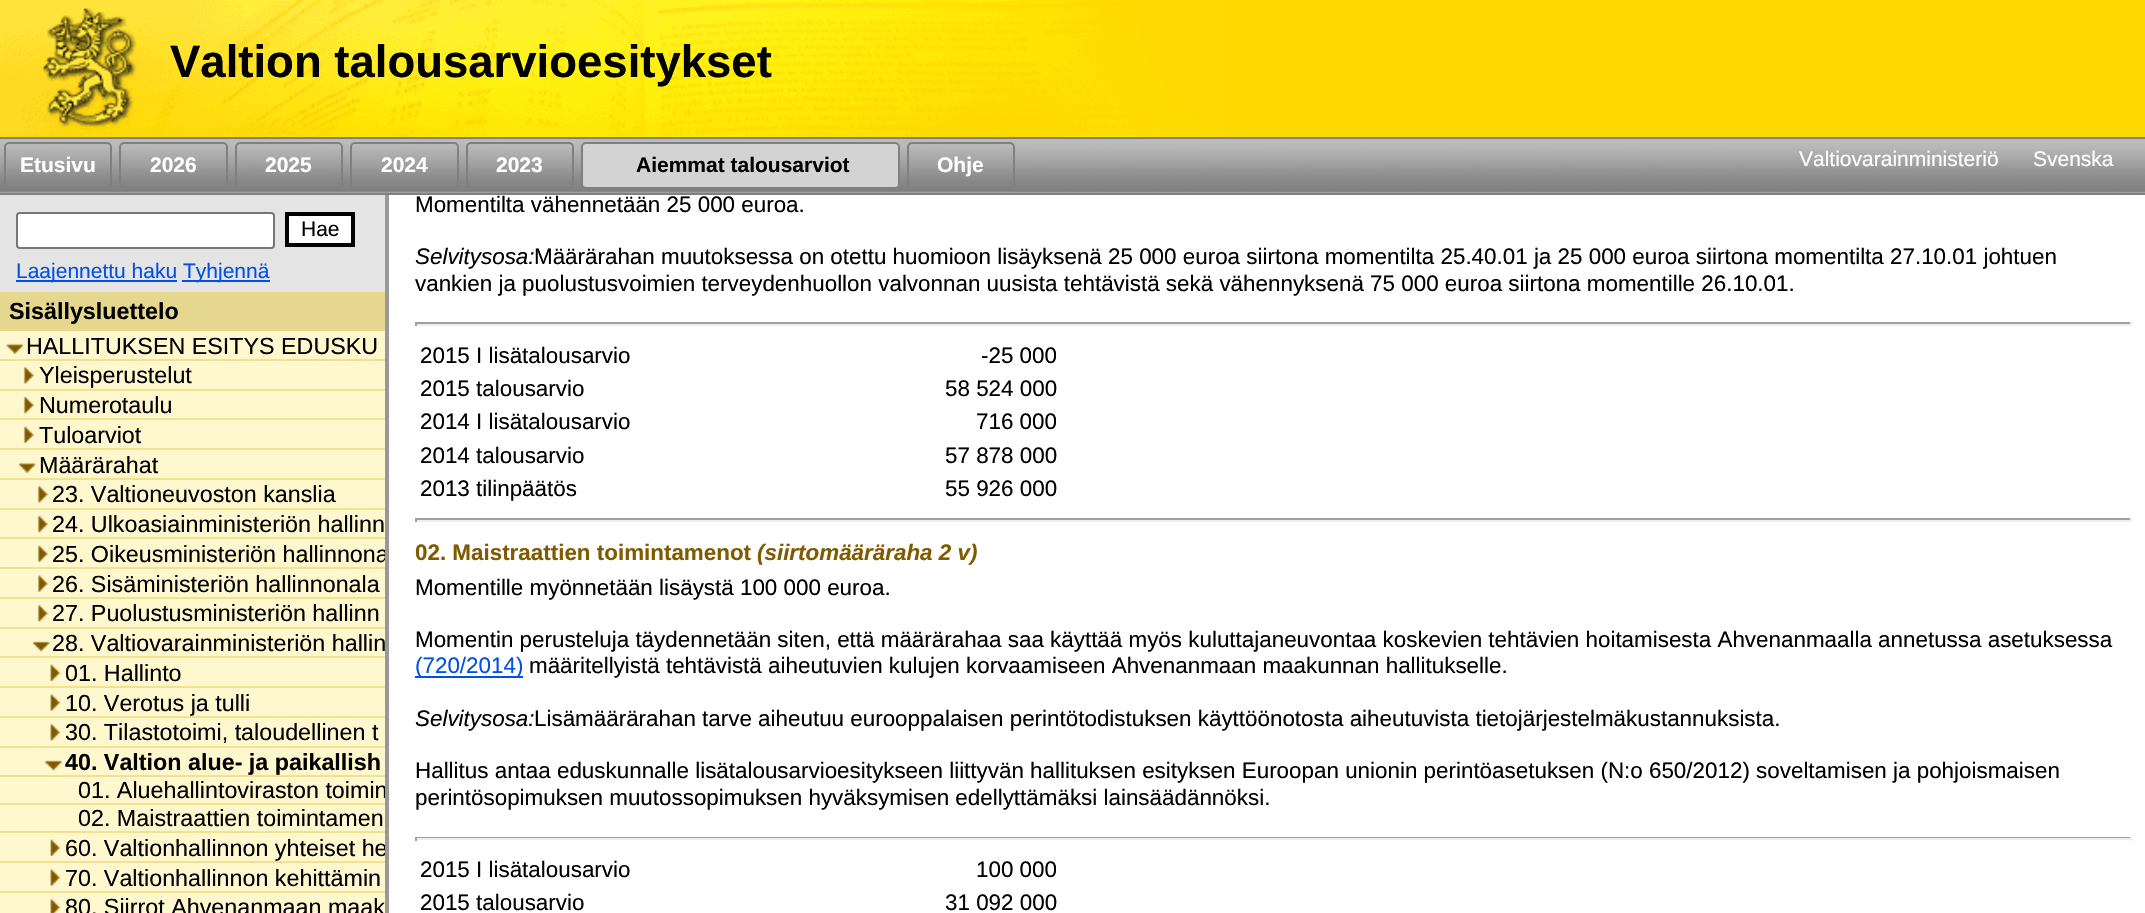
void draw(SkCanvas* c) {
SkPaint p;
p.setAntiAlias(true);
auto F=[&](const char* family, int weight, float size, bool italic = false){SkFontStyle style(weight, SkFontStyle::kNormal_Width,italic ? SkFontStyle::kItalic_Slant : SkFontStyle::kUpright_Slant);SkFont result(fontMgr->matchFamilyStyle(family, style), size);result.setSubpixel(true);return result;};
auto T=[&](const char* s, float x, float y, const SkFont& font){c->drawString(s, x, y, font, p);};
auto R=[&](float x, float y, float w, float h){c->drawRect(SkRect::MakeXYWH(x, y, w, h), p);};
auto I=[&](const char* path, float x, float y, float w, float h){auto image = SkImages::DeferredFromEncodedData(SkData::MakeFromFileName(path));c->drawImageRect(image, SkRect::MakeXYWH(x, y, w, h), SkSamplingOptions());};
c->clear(0xfffff8ce);
I("1.png",0,0,1225,137);
auto f1 = F("Liberation Sans",700,45.5);
p.setColor(0xff000000);
T("Valtion talousarvioesitykset",170,77,f1);
p.setColor(0xffffd800);
R(1225,0,920,137);
I("2.png",0,139,2145,54);
p.setColor(0xff808080);
R(0,137,2145,2);
p.setColor(0xff999999);
R(385,193,4,720);
p.setColor(0xff808080);
R(0,193,2145,2);
p.setStroke(true);
p.setStrokeWidth(2);
c->drawRoundRect(SkRect::MakeXYWH(5,143,106,45),4,4,p);
auto f2 = F("Liberation Sans",700,21);
p.setStroke(false);
p.setColor(0xffffffff);
T("Etusivu",20,172,f2);
p.setStroke(true);
p.setColor(0xff808080);
c->drawRoundRect(SkRect::MakeXYWH(120,143,107,45),4,4,p);
p.setStroke(false);
p.setColor(0xffffffff);
T("2026",150,172,f2);
p.setStroke(true);
p.setColor(0xff808080);
c->drawRoundRect(SkRect::MakeXYWH(236,143,106,45),4,4,p);
p.setStroke(false);
p.setColor(0xffffffff);
T("2025",265,172,f2);
p.setStroke(true);
p.setColor(0xff808080);
c->drawRoundRect(SkRect::MakeXYWH(351,143,107,45),4,4,p);
p.setStroke(false);
p.setColor(0xffffffff);
T("2024",381,172,f2);
p.setStroke(true);
p.setColor(0xff808080);
c->drawRoundRect(SkRect::MakeXYWH(467,143,106,45),4,4,p);
p.setStroke(false);
p.setColor(0xffffffff);
T("2023",496,172,f2);
p.setColor(0xffd3d3d3);
c->drawRoundRect(SkRect::MakeXYWH(582,143,317,45),4,4,p);
p.setStroke(true);
p.setColor(0xff808080);
c->drawRoundRect(SkRect::MakeXYWH(582,143,317,45),4,4,p);
p.setStroke(false);
p.setColor(0xff000000);
T("Aiemmat talousarviot",636,172,f2);
p.setStroke(true);
p.setColor(0xff808080);
c->drawRoundRect(SkRect::MakeXYWH(908,143,106,45),4,4,p);
p.setStroke(false);
p.setColor(0xffffffff);
T("Ohje",937,172,f2);
auto f3 = F("Liberation Sans",400,21);
T("Valtiovarainministeriö",1799,166,f3);
T("Svenska",2033,166,f3);
p.setColor(0xffe4e4e4);
R(0,195,385,97);
p.setColor(0xffffffff);
c->drawRoundRect(SkRect::MakeXYWH(17,213,257,35),3,3,p);
p.setStroke(true);
p.setColor(0xff767676);
c->drawRoundRect(SkRect::MakeXYWH(17,213,257,35),3,3,p);
p.setStroke(false);
p.setColor(0xfffefefe);
c->drawRect(SkRect::MakeXYWH(287,214,66,31),p);
p.setStroke(true);
p.setStrokeWidth(4);
p.setColor(0xff000000);
c->drawRect(SkRect::MakeXYWH(287,214,66,31),p);
p.setStroke(false);
T("Hae",301,236,f3);
p.setColor(0xff014fe5);
R(16,280,161,2);
T("Laajennettu haku",16,278,f3);
R(182,280,88,2);
T("Tyhjennä",183,278,f3);
p.setColor(0xffe5d88e);
R(0,292,385,39);
auto f4 = F("Liberation Sans",700,23.3);
p.setColor(0xff000000);
T("Sisällysluettelo",9,319,f4);
p.setColor(0xfff0e28f);
R(0,359,385,2);
I("3.png",6,343,18,11);
auto f5 = F("Liberation Sans",400,23.3);
p.setColor(0xff000000);
T("HALLITUKSEN ESITYS EDUSKU",26,354,f5);
p.setColor(0xfff0e28f);
R(0,389,385,2);
I("4.png",23,366,12,18);
p.setColor(0xff000000);
T("Yleisperustelut",39,383,f5);
p.setColor(0xfff0e28f);
R(0,418,385,2);
I("5.png",23,396,12,18);
p.setColor(0xff000000);
T("Numerotaulu",39,413,f5);
p.setColor(0xfff0e28f);
R(0,448,385,2);
I("6.png",23,426,12,17);
p.setColor(0xff000000);
T("Tuloarviot",39,443,f5);
p.setColor(0xfff0e28f);
R(0,478,385,2);
I("7.png",19,462,17,11);
p.setColor(0xff000000);
T("Määrärahat",39,473,f5);
p.setColor(0xfff0e28f);
R(0,508,385,2);
I("4.png",37,485,12,18);
p.setColor(0xff000000);
T("23. Valtioneuvoston kanslia",52,502,f5);
p.setColor(0xfff0e28f);
R(0,537,385,2);
I("5.png",37,515,12,18);
p.setColor(0xff000000);
T("24. Ulkoasiainministeriön hallinn",52,532,f5);
p.setColor(0xfff0e28f);
R(0,567,385,2);
I("8.png",37,545,12,17);
c->save();
c->clipRect(SkRect::MakeXYWH(0,292,385,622));
p.setColor(0xff000000);
T("25. Oikeusministeriön hallinnona",52,562,f5);
c->restore();
p.setColor(0xfff0e28f);
R(0,597,385,2);
I("9.png",37,574,12,18);
p.setColor(0xff000000);
T("26. Sisäministeriön hallinnonala",52,592,f5);
p.setColor(0xfff0e28f);
R(0,627,385,2);
I("4.png",37,604,12,18);
p.setColor(0xff000000);
T("27. Puolustusministeriön hallinn",52,621,f5);
p.setColor(0xfff0e28f);
R(0,656,385,2);
I("10.png",33,641,18,11);
p.setColor(0xff000000);
T("28. Valtiovarainministeriön hallin",52,651,f5);
p.setColor(0xfff0e28f);
R(0,686,385,2);
I("11.png",50,664,11,17);
p.setColor(0xff000000);
T("01. Hallinto",65,681,f5);
p.setColor(0xfff0e28f);
R(0,716,385,2);
I("12.png",50,693,11,18);
p.setColor(0xff000000);
T("10. Verotus ja tulli",65,711,f5);
p.setColor(0xfff0e28f);
R(0,746,385,2);
I("13.png",50,723,11,18);
p.setColor(0xff000000);
T("30. Tilastotoimi, taloudellinen t",65,740,f5);
p.setColor(0xfff0e28f);
R(0,775,385,2);
I("14.png",45,760,18,11);
p.setColor(0xff000000);
T("40. Valtion alue- ja paikallish",65,770,f4);
p.setColor(0xfff0e28f);
R(0,803,385,2);
c->save();
c->clipRect(SkRect::MakeXYWH(0,292,385,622));
p.setColor(0xff000000);
T("01. Aluehallintoviraston toimin",78,798,f5);
c->restore();
p.setColor(0xfff0e28f);
R(0,831,385,2);
p.setColor(0xff000000);
T("02. Maistraattien toimintamen",78,826,f5);
p.setColor(0xfff0e28f);
R(0,861,385,2);
I("15.png",50,839,11,17);
c->save();
c->clipRect(SkRect::MakeXYWH(0,292,385,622));
p.setColor(0xff000000);
T("60. Valtionhallinnon yhteiset he",65,856,f5);
c->restore();
p.setColor(0xfff0e28f);
R(0,891,385,2);
I("12.png",50,868,11,18);
p.setColor(0xff000000);
T("70. Valtionhallinnon kehittämin",65,886,f5);
I("16.png",50,898,11,15);
T("80. Siirrot Ahvenanmaan maak",65,915,f5);
p.setColor(0xffffffff);
R(389,195,1756,718);
auto f6 = F("Liberation Sans",400,22.4);
p.setColor(0xff000000);
T("Momentilta vähennetään 25 000 euroa.",415,212,f6);
auto f7 = F("Liberation Sans",400,22.4,true);
T("Selvitysosa:",415,264,f7);
T("Määrärahan muutoksessa on otettu huomioon lisäyksenä 25 000 euroa siirtona momentilta 25.40.01 ja 25 000 euroa siirtona momentilta 27.10.01 johtuen",534,264,f6);
T("vankien ja puolustusvoimien terveydenhuollon valvonnan uusista tehtävistä sekä vähennyksenä 75 000 euroa siirtona momentille 26.10.01.",415,291,f6);
p.setColor(0xff9f9f9f);
R(415,322,1717,2);
p.setColor(0xffeeeeee);
R(2130,322,2,4);
R(415,324,1717,2);
p.setColor(0xff9f9f9f);
R(415,322,2,4);
p.setColor(0xff000000);
T("2015 I lisätalousarvio",420,363,f6);
T("-25 000",981,363,f6);
T("2015 talousarvio",420,396,f6);
T("58 524 000",945,396,f6);
T("2014 I lisätalousarvio",420,429,f6);
T("716 000",976,429,f6);
T("2014 talousarvio",420,463,f6);
T("57 878 000",945,463,f6);
T("2013 tilinpäätös",420,496,f6);
T("55 926 000",945,496,f6);
p.setColor(0xff9f9f9f);
R(415,518,1717,2);
p.setColor(0xffeeeeee);
R(2130,518,2,4);
R(415,520,1717,2);
p.setColor(0xff9f9f9f);
R(415,518,2,4);
auto f8 = F("Liberation Sans",700,22.4);
p.setColor(0xff805a00);
T("02. Maistraattien toimintamenot",415,560,f8);
auto f9 = F("Liberation Sans",700,22.4,true);
T("(siirtomääräraha 2 v)",757,560,f9);
p.setColor(0xff000000);
T("Momentille myönnetään lisäystä 100 000 euroa.",415,595,f6);
T("Momentin perusteluja täydennetään siten, että määrärahaa saa käyttää myös kuluttajaneuvontaa koskevien tehtävien hoitamisesta Ahvenanmaalla annetussa asetuksessa",415,647,f6);
p.setColor(0xff014fe5);
R(415,676,108,2);
T("(720/2014)",415,673,f6);
p.setColor(0xff000000);
T("määritellyistä tehtävistä aiheutuvien kulujen korvaamiseen Ahvenanmaan maakunnan hallitukselle.",529,673,f6);
T("Selvitysosa:",415,726,f7);
T("Lisämäärärahan tarve aiheutuu eurooppalaisen perintötodistuksen käyttöönotosta aiheutuvista tietojärjestelmäkustannuksista.",534,726,f6);
T("Hallitus antaa eduskunnalle lisätalousarvioesitykseen liittyvän hallituksen esityksen Euroopan unionin perintöasetuksen (N:o 650/2012) soveltamisen ja pohjoismaisen",415,778,f6);
T("perintösopimuksen muutossopimuksen hyväksymisen edellyttämäksi lainsäädännöksi.",415,805,f6);
p.setColor(0xff9f9f9f);
R(415,837,1717,1);
p.setColor(0xffeeeeee);
R(2130,837,2,4);
R(415,838,1717,2);
p.setColor(0xff9f9f9f);
R(415,837,2,4);
p.setColor(0xff000000);
T("2015 I lisätalousarvio",420,877,f6);
T("100 000",976,877,f6);
T("2015 talousarvio",420,910,f6);
T("31 092 000",945,910,f6);
}
